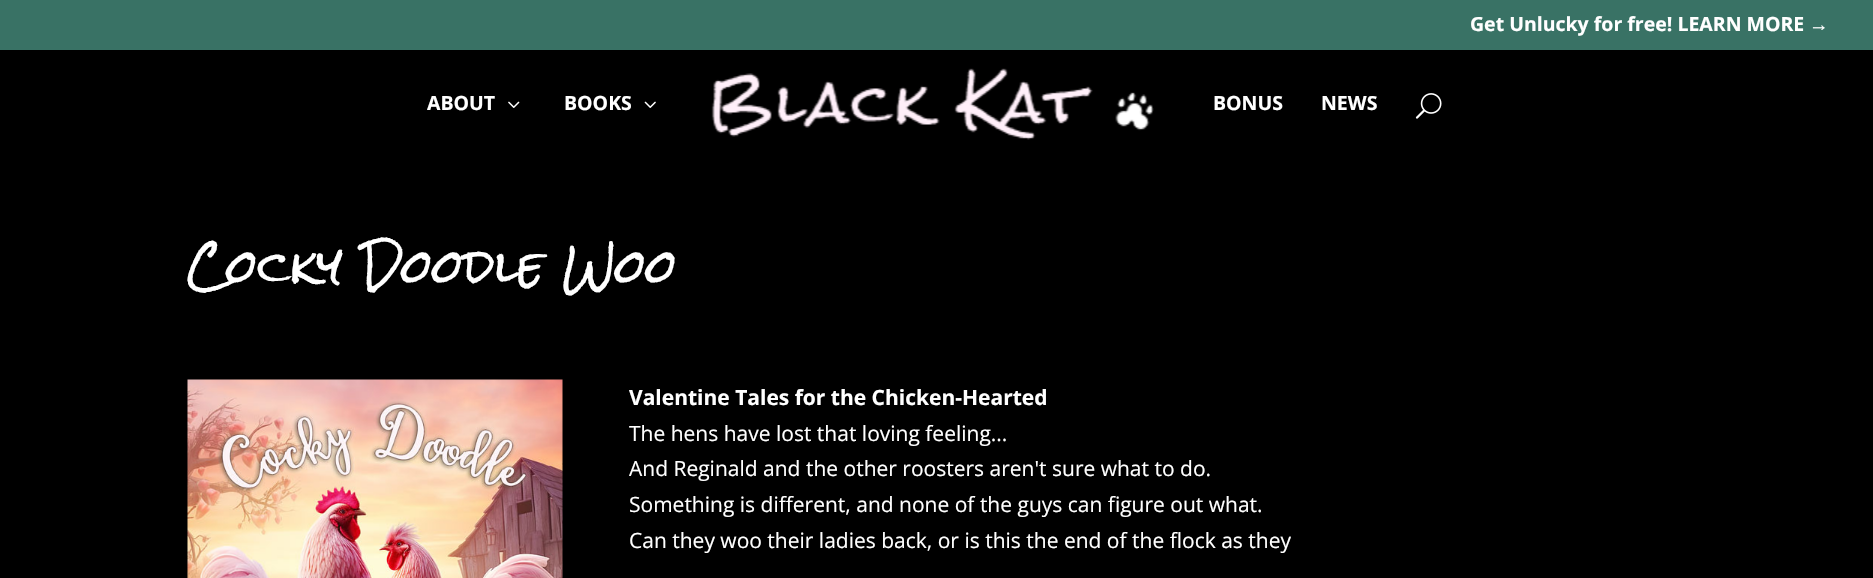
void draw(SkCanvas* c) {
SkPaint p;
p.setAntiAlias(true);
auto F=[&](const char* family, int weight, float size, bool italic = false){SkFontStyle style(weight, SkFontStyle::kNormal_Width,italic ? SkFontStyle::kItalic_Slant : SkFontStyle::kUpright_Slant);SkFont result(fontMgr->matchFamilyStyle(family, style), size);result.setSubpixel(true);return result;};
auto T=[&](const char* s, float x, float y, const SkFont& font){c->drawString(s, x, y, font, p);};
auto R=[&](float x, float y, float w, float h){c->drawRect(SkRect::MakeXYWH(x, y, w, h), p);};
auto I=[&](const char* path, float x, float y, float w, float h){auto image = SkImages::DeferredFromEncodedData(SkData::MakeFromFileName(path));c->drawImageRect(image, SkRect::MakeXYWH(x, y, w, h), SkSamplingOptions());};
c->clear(0xff000000);
p.setColor(0xff397265);
R(0,0,1873,50);
auto f1 = F("Open Sans",700,19.5);
p.setColor(0xffffffff);
T("Get Unlucky for free! LEARN MORE",1470,31,f1);
auto f2 = F("Liberation Sans",700,19.5);
T("→",1809,31,f2);
T("ABOUT",427,110,f1);
I("1.png",508,101,12,7);
T("BOOKS",564,110,f1);
I("2.png",644,101,12,7);
I("3.png",711,68,443,72);
T("BONUS",1213,110,f1);
T("NEWS",1321,110,f1);
I("4.png",1415,93,27,26);
auto f3 = F("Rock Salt",400,45);
T("Cocky Doodle Woo",187,284,f3);
I("5.png",187,379,376,199);
auto f4 = F("Open Sans",700,21);
T("Valentine Tales for the Chicken-Hearted",629,405,f4);
auto f5 = F("Open Sans",400,21);
T("The hens have lost that loving feeling...",629,441,f5);
T("And Reginald and the other roosters aren't sure what to do.",629,476,f5);
T("Something is different, and none of the guys can figure out what.",629,512,f5);
T("Can they woo their ladies back, or is this the end of the flock as they",629,548,f5);
}
